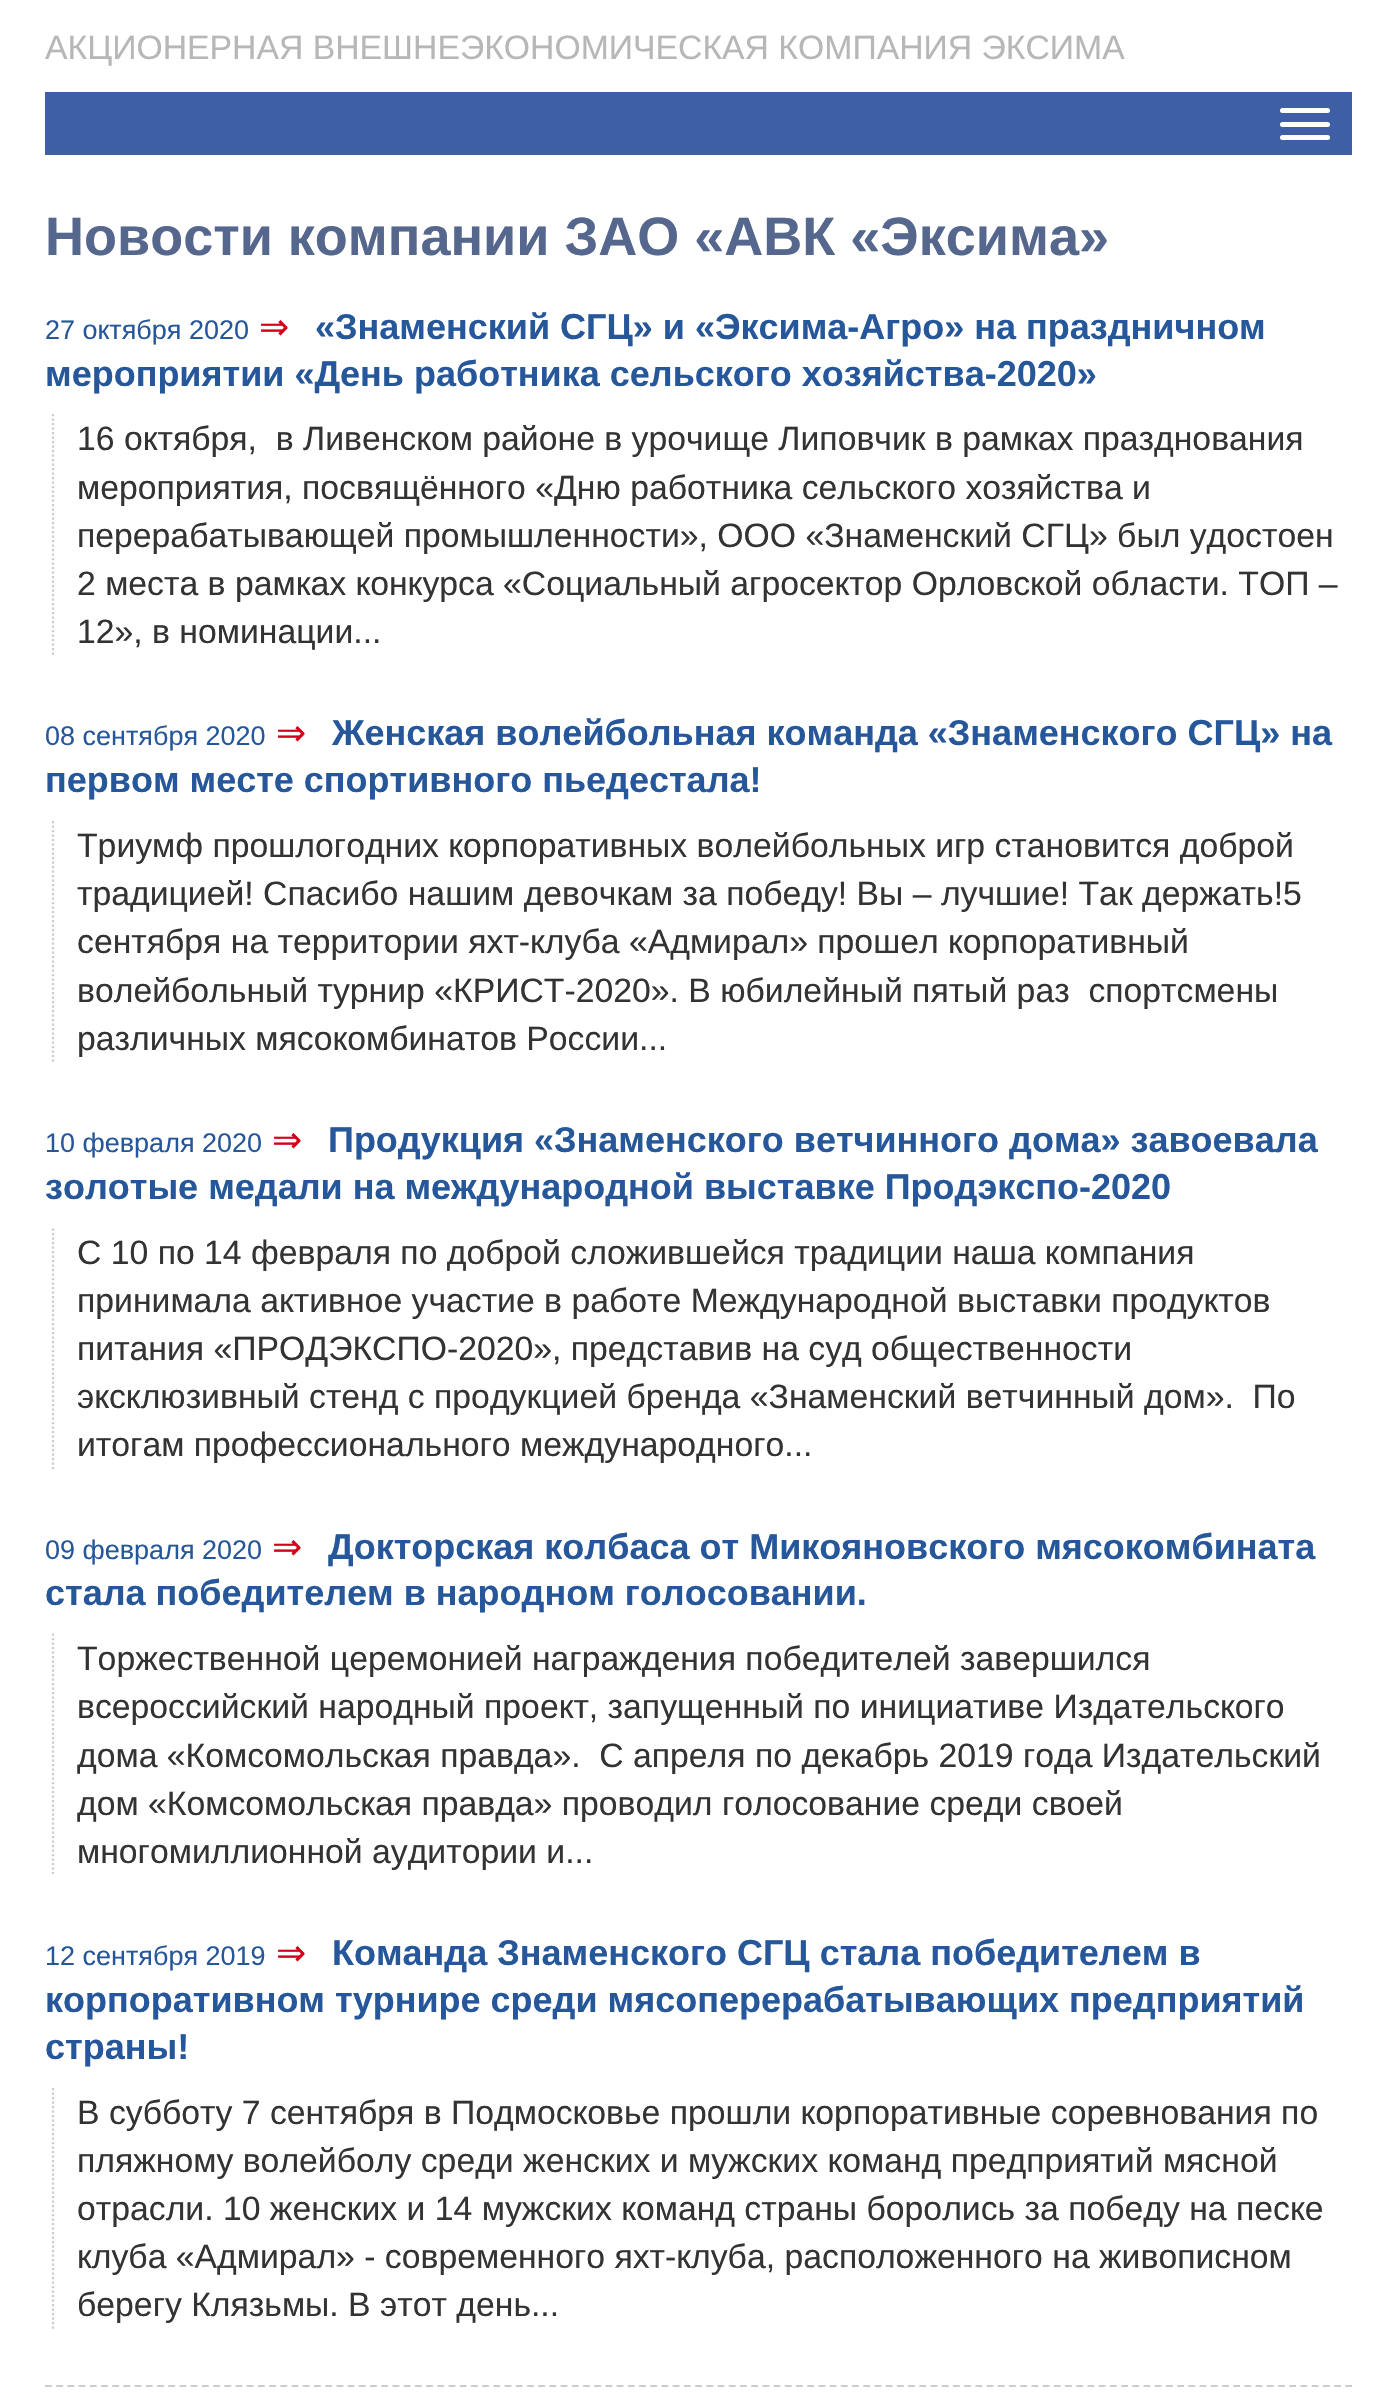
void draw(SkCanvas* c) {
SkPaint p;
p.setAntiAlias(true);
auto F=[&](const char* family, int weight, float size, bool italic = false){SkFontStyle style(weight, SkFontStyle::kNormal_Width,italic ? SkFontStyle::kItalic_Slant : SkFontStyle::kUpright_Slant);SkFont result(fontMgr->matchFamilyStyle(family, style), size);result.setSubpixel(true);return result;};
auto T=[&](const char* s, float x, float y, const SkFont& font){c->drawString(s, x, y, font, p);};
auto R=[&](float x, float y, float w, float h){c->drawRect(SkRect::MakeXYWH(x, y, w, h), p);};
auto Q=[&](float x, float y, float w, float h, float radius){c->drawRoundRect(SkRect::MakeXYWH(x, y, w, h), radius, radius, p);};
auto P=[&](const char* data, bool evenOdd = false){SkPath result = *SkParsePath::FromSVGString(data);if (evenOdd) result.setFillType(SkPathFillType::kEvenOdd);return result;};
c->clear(0xffffffff);
auto f1 = F("Liberation Sans",400,33.75);
p.setColor(0xffb7b7b7);
T("АКЦИОНЕРНАЯ ВНЕШНЕЭКОНОМИЧЕСКАЯ КОМПАНИЯ ЭКСИМА",45,59,f1);
p.setColor(0xff3e5ea5);
R(45,92,1307,63);
p.setColor(0xffffffff);
Q(1280,108,50,5,2.5);
Q(1280,122,50,5,2.5);
Q(1280,135,50,5,2.5);
auto f2 = F("Liberation Sans",700,54);
p.setColor(0xff56678e);
T("Новости компании ЗАО «АВК «Эксима»",45,255,f2);
auto f3 = F("Liberation Sans",400,27);
p.setColor(0xff26579a);
T("27 октября 2020",45,339,f3);
auto f4 = F("DejaVu Sans",400,36);
p.setColor(0xffd3021a);
T("⇒",259,339,f4);
auto f5 = F("Liberation Sans",700,36);
p.setColor(0xff26579a);
T("«Знаменский СГЦ» и «Эксима-Агро» на праздничном",315,339,f5);
T("мероприятии «День работника сельского хозяйства-2020»",45,386,f5);
p.setStroke(true);
p.setStrokeWidth(2.2);
p.setColor(0xffcccccc);
p.setPathEffect(SkDashPathEffect::Make({{2.25f,2.25f}}, 0));
c->drawPath(P("M53 414v241"),p);
p.setPathEffect(nullptr);
p.setStroke(false);
p.setColor(0xff333333);
T("16 октября,  в Ливенском районе в урочище Липовчик в рамках празднования",77,450,f1);
T("мероприятия, посвящённого «Дню работника сельского хозяйства и",77,499,f1);
T("перерабатывающей промышленности», ООО «Знаменский СГЦ» был удостоен",77,547,f1);
T("2 места в рамках конкурса «Социальный агросектор Орловской области. ТОП –",77,595,f1);
T("12», в номинации...",77,643,f1);
p.setColor(0xff26579a);
T("08 сентября 2020",45,745,f3);
p.setColor(0xffd3021a);
T("⇒",276,745,f4);
p.setColor(0xff26579a);
T("Женская волейбольная команда «Знаменского СГЦ» на",332,745,f5);
T("первом месте спортивного пьедестала!",45,792,f5);
p.setStroke(true);
p.setColor(0xffcccccc);
p.setPathEffect(SkDashPathEffect::Make({{2.25f,2.25f}}, 0));
c->drawPath(P("M53 821v241"),p);
p.setPathEffect(nullptr);
p.setStroke(false);
p.setColor(0xff333333);
T("Триумф прошлогодних корпоративных волейбольных игр становится доброй",77,857,f1);
T("традицией! Спасибо нашим девочкам за победу! Вы – лучшие! Так держать!5",77,905,f1);
T("сентября на территории яхт-клуба «Адмирал» прошел корпоративный",77,953,f1);
T("волейбольный турнир «КРИСТ-2020». В юбилейный пятый раз  спортсмены",77,1002,f1);
T("различных мясокомбинатов России...",77,1050,f1);
p.setColor(0xff26579a);
T("10 февраля 2020",45,1152,f3);
p.setColor(0xffd3021a);
T("⇒",272,1152,f4);
p.setColor(0xff26579a);
T("Продукция «Знаменского ветчинного дома» завоевала",328,1152,f5);
T("золотые медали на международной выставке Продэкспо-2020",45,1199,f5);
p.setStroke(true);
p.setColor(0xffcccccc);
p.setPathEffect(SkDashPathEffect::Make({{2.25f,2.25f}}, 0));
c->drawPath(P("M53 1228.5v240.5"),p);
p.setPathEffect(nullptr);
p.setStroke(false);
p.setColor(0xff333333);
T("С 10 по 14 февраля по доброй сложившейся традиции наша компания",77,1264,f1);
T("принимала активное участие в работе Международной выставки продуктов",77,1312,f1);
T("питания «ПРОДЭКСПО-2020», представив на суд общественности",77,1360,f1);
T("эксклюзивный стенд с продукцией бренда «Знаменский ветчинный дом».  По",77,1408,f1);
T("итогам профессионального международного...",77,1456,f1);
p.setColor(0xff26579a);
T("09 февраля 2020",45,1559,f3);
p.setColor(0xffd3021a);
T("⇒",272,1559,f4);
p.setColor(0xff26579a);
T("Докторская колбаса от Микояновского мясокомбината",328,1559,f5);
T("стала победителем в народном голосовании.",45,1605,f5);
p.setStroke(true);
p.setColor(0xffcccccc);
p.setPathEffect(SkDashPathEffect::Make({{2.25f,2.25f}}, 0));
c->drawPath(P("M53 1633.5v240.5"),p);
p.setPathEffect(nullptr);
p.setStroke(false);
p.setColor(0xff333333);
T("Торжественной церемонией награждения победителей завершился",77,1670,f1);
T("всероссийский народный проект, запущенный по инициативе Издательского",77,1718,f1);
T("дома «Комсомольская правда».  С апреля по декабрь 2019 года Издательский",77,1767,f1);
T("дом «Комсомольская правда» проводил голосование среди своей",77,1815,f1);
T("многомиллионной аудитории и...",77,1863,f1);
p.setColor(0xff26579a);
T("12 сентября 2019",45,1965,f3);
p.setColor(0xffd3021a);
T("⇒",276,1965,f4);
p.setColor(0xff26579a);
T("Команда Знаменского СГЦ стала победителем в",332,1965,f5);
T("корпоративном турнире среди мясоперерабатывающих предприятий",45,2012,f5);
T("страны!",45,2059,f5);
p.setStroke(true);
p.setColor(0xffcccccc);
p.setPathEffect(SkDashPathEffect::Make({{2.25f,2.25f}}, 0));
c->drawPath(P("M53 2088v241"),p);
p.setPathEffect(nullptr);
p.setStroke(false);
p.setColor(0xff333333);
T("В субботу 7 сентября в Подмосковье прошли корпоративные соревнования по",77,2124,f1);
T("пляжному волейболу среди женских и мужских команд предприятий мясной",77,2172,f1);
T("отрасли. 10 женских и 14 мужских команд страны боролись за победу на песке",77,2220,f1);
T("клуба «Адмирал» - современного яхт-клуба, расположенного на живописном",77,2268,f1);
T("берегу Клязьмы. В этот день...",77,2316,f1);
p.setStroke(true);
p.setColor(0xffcccccc);
p.setPathEffect(SkDashPathEffect::Make({{6.75f,4.46f}}, 0));
c->drawPath(P("M45 2386h1307"),p);
p.setPathEffect(nullptr);
}
